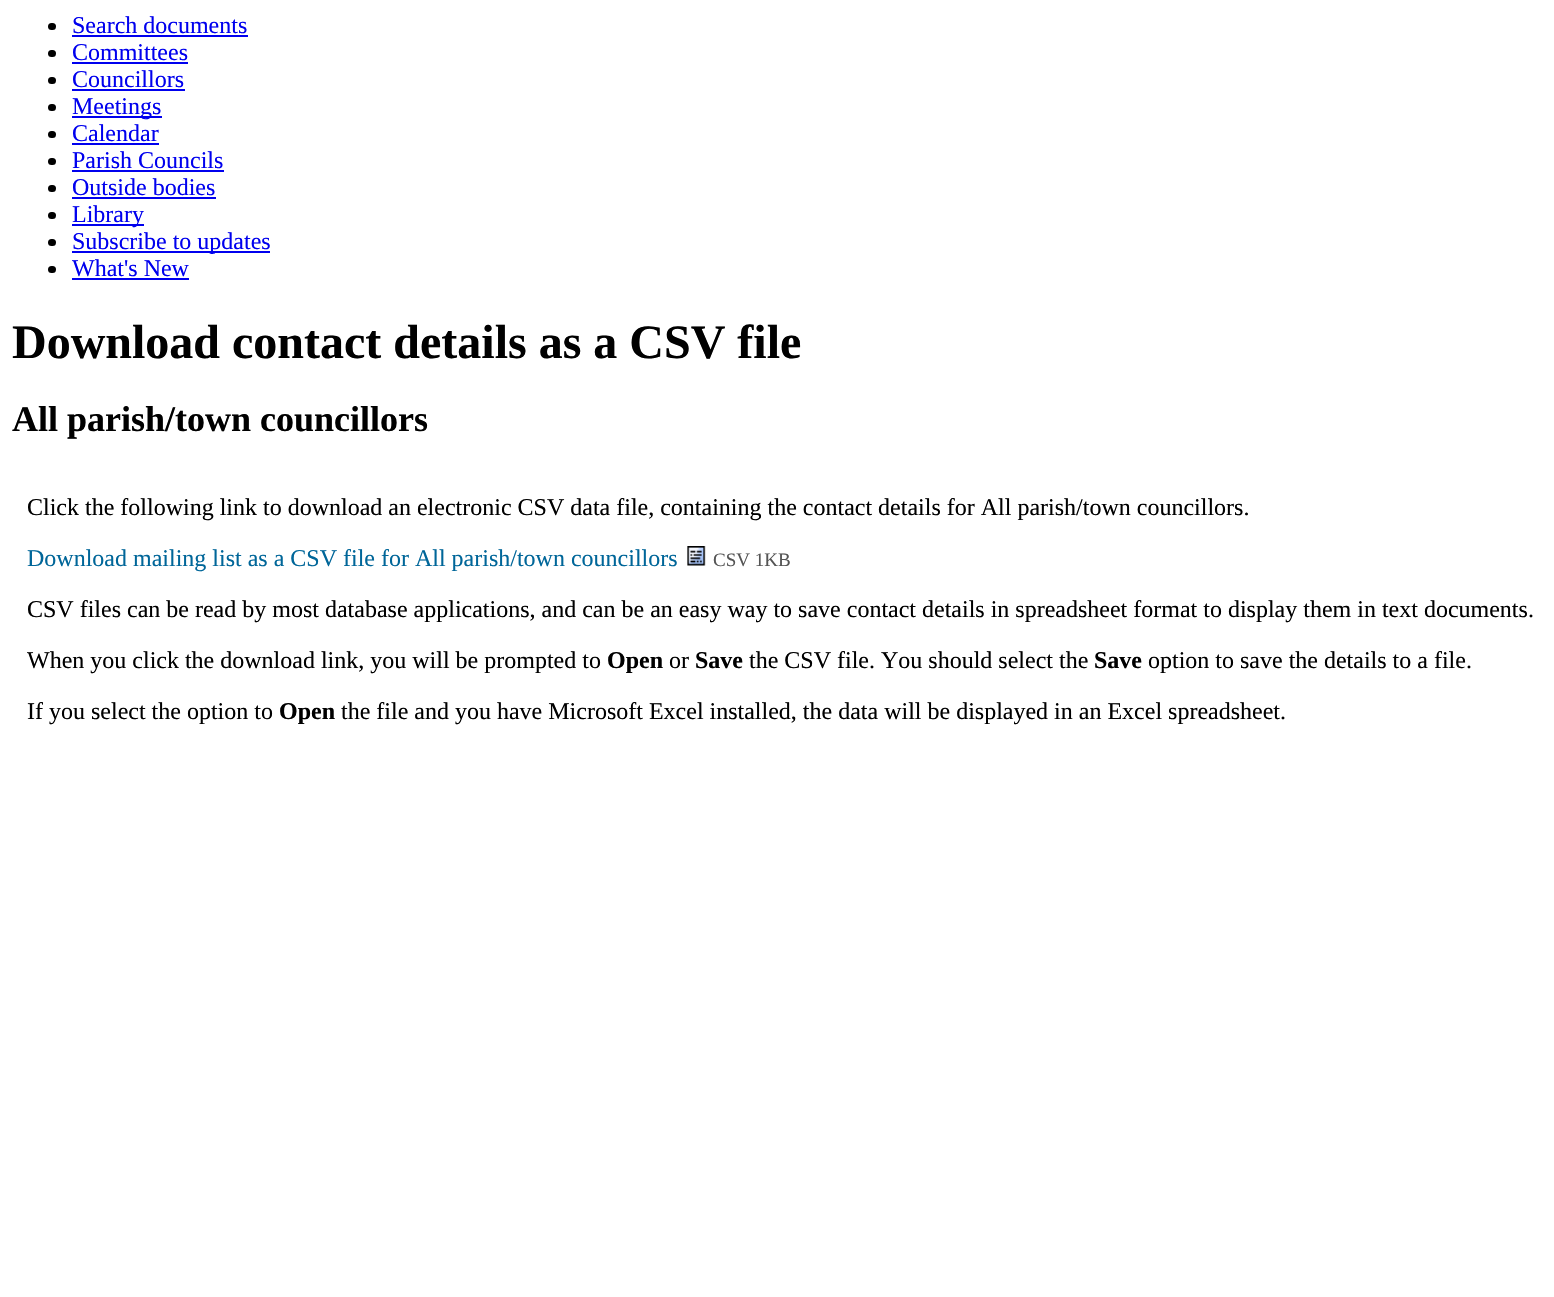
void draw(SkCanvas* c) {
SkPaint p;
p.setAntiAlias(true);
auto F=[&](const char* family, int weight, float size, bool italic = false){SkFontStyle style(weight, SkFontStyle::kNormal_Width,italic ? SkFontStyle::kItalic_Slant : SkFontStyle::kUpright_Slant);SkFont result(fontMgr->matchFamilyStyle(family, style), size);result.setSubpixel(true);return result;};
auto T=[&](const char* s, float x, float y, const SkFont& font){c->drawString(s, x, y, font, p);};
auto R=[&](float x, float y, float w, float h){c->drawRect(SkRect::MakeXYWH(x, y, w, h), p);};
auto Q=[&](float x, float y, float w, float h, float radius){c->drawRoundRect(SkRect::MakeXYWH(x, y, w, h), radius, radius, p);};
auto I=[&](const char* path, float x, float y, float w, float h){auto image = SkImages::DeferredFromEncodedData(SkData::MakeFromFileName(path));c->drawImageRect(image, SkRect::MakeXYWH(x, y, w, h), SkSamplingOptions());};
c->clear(0xffffffff);
p.setColor(0xff000000);
Q(48,23,8,7,3.5);
auto f1 = F("Liberation Serif",400,24);
p.setColor(0xff0000ee);
T("Search documents",72,33,f1);
R(72,35,176,2);
p.setColor(0xff000000);
Q(48,50,8,7,3.5);
p.setColor(0xff0000ee);
T("Committees",72,60,f1);
R(72,62,116,2);
p.setColor(0xff000000);
Q(48,77,8,7,3.5);
p.setColor(0xff0000ee);
T("Councillors",72,87,f1);
R(72,89,113,2);
p.setColor(0xff000000);
Q(48,104,8,7,3.5);
p.setColor(0xff0000ee);
R(72,116,90,2);
T("Meetings",72,114,f1);
p.setColor(0xff000000);
Q(48,131,8,7,3.5);
p.setColor(0xff0000ee);
T("Calendar",72,141,f1);
R(72,143,87,2);
p.setColor(0xff000000);
Q(48,158,8,7,3.5);
p.setColor(0xff0000ee);
T("Parish Councils",72,168,f1);
R(72,170,152,2);
p.setColor(0xff000000);
Q(48,185,8,7,3.5);
p.setColor(0xff0000ee);
T("Outside bodies",72,195,f1);
R(72,197,144,2);
p.setColor(0xff000000);
Q(48,212,8,7,3.5);
p.setColor(0xff0000ee);
R(72,224,72,2);
T("Library",72,222,f1);
p.setColor(0xff000000);
Q(48,239,8,7,3.5);
p.setColor(0xff0000ee);
R(72,251,198,2);
T("Subscribe to updates",72,249,f1);
p.setColor(0xff000000);
Q(48,266,8,7,3.5);
p.setColor(0xff0000ee);
T("What's New",72,276,f1);
R(72,278,117,2);
auto f2 = F("Liberation Serif",700,48);
p.setColor(0xff000000);
T("Download contact details as a CSV file",12,358,f2);
auto f3 = F("Liberation Serif",700,36);
T("All parish/town councillors",12,431,f3);
T("Click the following link to download an electronic CSV data file, containing the contact details for All parish/town councillors.",27,515,f1);
p.setColor(0xff006699);
T("Download mailing list as a CSV file for All parish/town councillors",27,566,f1);
I("1.png",687,546,19,20);
auto f4 = F("Liberation Serif",400,19);
p.setColor(0xff555555);
T("CSV 1KB",713,566,f4);
p.setColor(0xff000000);
T("CSV files can be read by most database applications, and can be an easy way to save contact details in spreadsheet format to display them in text documents.",27,617,f1);
T("When you click the download link, you will be prompted to",27,668,f1);
auto f5 = F("Liberation Serif",700,24);
T("Open",607,668,f5);
T("or",669,668,f1);
T("Save",695,668,f5);
T("the CSV file. You should select the",749,668,f1);
T("Save",1094,668,f5);
T("option to save the details to a file.",1148,668,f1);
T("If you select the option to",27,719,f1);
T("Open",279,719,f5);
T("the file and you have Microsoft Excel installed, the data will be displayed in an Excel spreadsheet.",341,719,f1);
}
